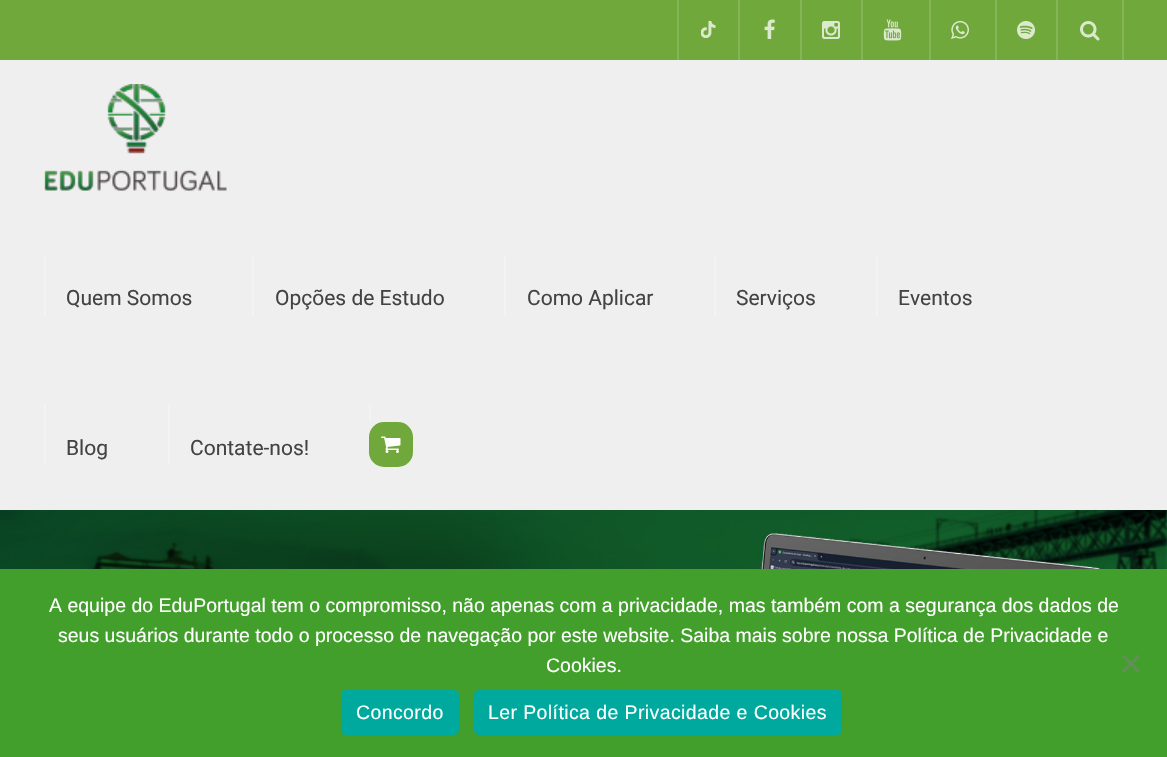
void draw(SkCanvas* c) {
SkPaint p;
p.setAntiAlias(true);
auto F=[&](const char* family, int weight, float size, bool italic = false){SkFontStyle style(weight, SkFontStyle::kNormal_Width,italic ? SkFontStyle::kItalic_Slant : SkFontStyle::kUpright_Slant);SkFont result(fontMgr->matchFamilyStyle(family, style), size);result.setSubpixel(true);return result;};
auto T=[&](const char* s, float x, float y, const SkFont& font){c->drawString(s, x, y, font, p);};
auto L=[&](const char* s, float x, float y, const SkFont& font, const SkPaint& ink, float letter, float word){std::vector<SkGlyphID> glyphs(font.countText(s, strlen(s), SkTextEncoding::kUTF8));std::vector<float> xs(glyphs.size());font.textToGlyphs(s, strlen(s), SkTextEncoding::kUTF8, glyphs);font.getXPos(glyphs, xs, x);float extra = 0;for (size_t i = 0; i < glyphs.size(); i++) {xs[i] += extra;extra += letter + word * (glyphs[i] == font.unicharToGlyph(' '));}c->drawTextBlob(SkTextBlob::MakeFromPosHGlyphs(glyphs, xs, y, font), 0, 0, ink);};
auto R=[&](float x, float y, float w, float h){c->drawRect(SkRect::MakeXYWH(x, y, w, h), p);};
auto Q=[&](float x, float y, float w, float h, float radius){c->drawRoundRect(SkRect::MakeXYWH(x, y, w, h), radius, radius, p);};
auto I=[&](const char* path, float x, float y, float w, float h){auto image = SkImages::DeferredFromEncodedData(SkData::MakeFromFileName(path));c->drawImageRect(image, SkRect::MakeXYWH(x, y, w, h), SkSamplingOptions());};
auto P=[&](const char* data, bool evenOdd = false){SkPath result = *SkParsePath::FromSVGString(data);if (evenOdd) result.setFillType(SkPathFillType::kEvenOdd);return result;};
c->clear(0xff70a83b);
p.setColor(0xff85b558);
R(677,0,2,60);
I("1.png",701,21,15,17);
R(738,0,2,60);
I("2.png",764,19,11,20);
R(800,0,2,60);
I("3.png",822,21,18,18);
R(861,0,2,60);
I("4.png",883,19,19,22);
R(929,0,2,60);
I("5.png",951,20,18,19);
R(995,0,2,60);
I("6.png",1017,21,18,18);
R(1122,0,2,60);
R(1056,0,2,60);
I("7.png",1080,21,20,20);
p.setColor(0xffefefef);
R(0,60,1167,450);
I("8.png",44,84,183,107);
p.setColor(0xfff3f3f3);
R(44,255,2,60);
auto f1 = F("Roboto",400,21);
p.setColor(0xff444242);
T("Quem Somos",66,305,f1);
p.setColor(0xfff3f3f3);
R(252,255,2,60);
p.setColor(0xff444242);
T("Opções de Estudo",275,305,f1);
p.setColor(0xfff3f3f3);
R(504,255,2,60);
p.setColor(0xff444242);
T("Como Aplicar",527,305,f1);
p.setColor(0xfff3f3f3);
R(714,255,2,60);
p.setColor(0xff444242);
T("Serviços",736,305,f1);
p.setColor(0xfff3f3f3);
R(876,255,2,60);
p.setColor(0xff444242);
T("Eventos",898,305,f1);
p.setColor(0xfff3f3f3);
R(44,405,2,60);
p.setColor(0xff444242);
T("Blog",66,455,f1);
p.setColor(0xfff3f3f3);
R(168,405,2,60);
p.setColor(0xff444242);
T("Contate-nos!",190,455,f1);
p.setColor(0xfff3f3f3);
R(369,405,2,17);
p.setColor(0xff70a83b);
Q(369,422,44,45,15);
I("9.png",381,436,20,17);
I("10.png",0,510,1167,59);
p.setColor(0xff429f2c);
R(0,569,1167,188);
auto f2 = F("Liberation Sans",400,19.5);
p.setColor(0xffffffff);
T("A equipe do EduPortugal tem o compromisso, não apenas com a privacidade, mas também com a segurança dos dados de",49,612,f2);
T("seus usuários durante todo o processo de navegação por este website. Saiba mais sobre nossa Política de Privacidade e",58,642,f2);
T("Cookies.",546,672,f2);
p.setColor(0xff619056);
c->drawPath(P("M1138 654.5l2 2.5l-16 16l-2-2.5z"),p);
c->drawPath(P("M1122 657l2-2.5l16 16l-2 2.5z"),p);
p.setColor(0xff00a99d);
Q(341,690,118,45,5);
p.setColor(0xffffffff);
L("Concordo",356,719,f2,p,.4,0);
p.setColor(0xff00a99d);
Q(474,690,368,45,5);
p.setColor(0xffffffff);
L("Ler Política de Privacidade e Cookies",488,719,f2,p,.4,0);
}
